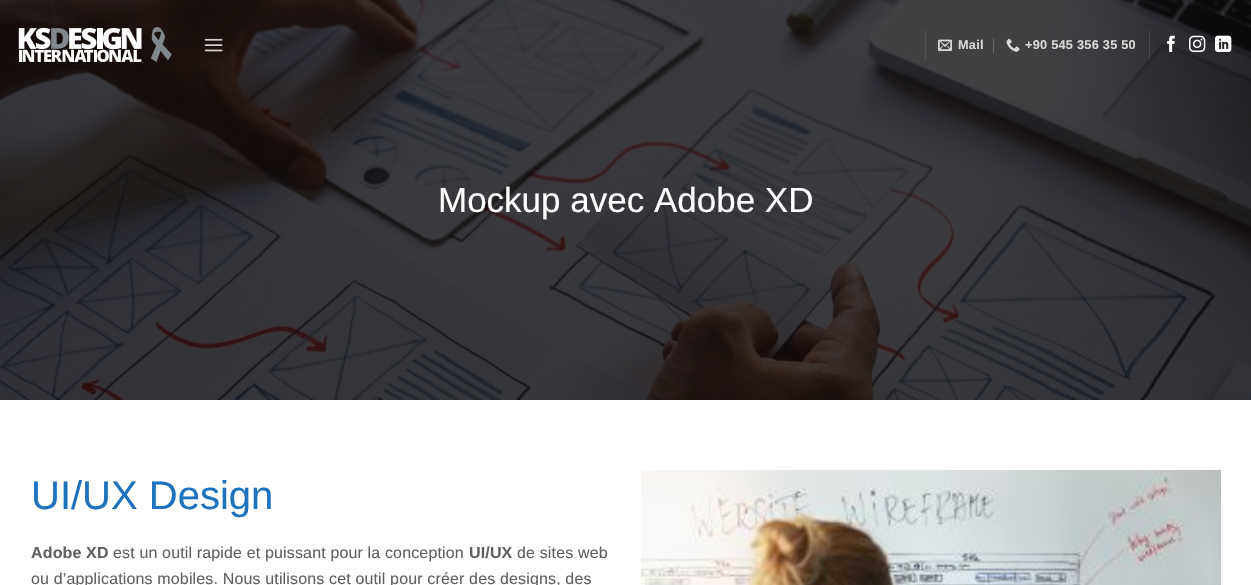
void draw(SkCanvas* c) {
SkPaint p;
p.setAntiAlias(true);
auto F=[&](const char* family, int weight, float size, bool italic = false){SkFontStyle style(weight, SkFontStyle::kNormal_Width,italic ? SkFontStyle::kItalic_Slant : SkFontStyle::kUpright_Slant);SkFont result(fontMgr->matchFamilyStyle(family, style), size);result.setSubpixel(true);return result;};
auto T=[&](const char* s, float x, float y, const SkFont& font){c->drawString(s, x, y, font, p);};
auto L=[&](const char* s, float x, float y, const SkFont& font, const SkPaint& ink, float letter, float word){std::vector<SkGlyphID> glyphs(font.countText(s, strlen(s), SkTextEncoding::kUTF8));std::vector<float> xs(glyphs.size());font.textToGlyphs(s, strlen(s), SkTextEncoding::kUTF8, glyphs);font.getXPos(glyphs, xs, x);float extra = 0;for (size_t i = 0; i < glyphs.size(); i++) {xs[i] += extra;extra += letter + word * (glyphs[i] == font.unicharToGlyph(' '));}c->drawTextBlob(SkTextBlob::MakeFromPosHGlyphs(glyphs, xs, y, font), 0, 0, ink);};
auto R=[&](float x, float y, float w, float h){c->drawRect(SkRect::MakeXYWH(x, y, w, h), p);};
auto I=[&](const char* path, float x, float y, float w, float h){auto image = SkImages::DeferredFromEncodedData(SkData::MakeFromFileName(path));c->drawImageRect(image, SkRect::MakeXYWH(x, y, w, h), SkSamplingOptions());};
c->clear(0xffffffff);
I("8.png",0,0,1251,400);
I("1.png",18,27,154,36);
I("2.png",204,38,19,14);
p.setColor(0xff545455);
R(925,30,1,30);
I("3.png",938,39,14,12);
auto f1 = F("Liberation Sans",700,12.75);
p.setColor(0xffd9d9d9);
L("Mail",958,49,f1,p,.25,0);
p.setColor(0xff666769);
R(993,38,1,15);
I("4.png",1006,38,14,14);
p.setColor(0xffd9d9d9);
L("+90 545 356 35 50",1025,49,f1,p,.25,0);
p.setColor(0x1affffff);
R(1149,30,1,30);
I("5.png",1167,35,8,17);
I("6.png",1189,35,17,17);
I("7.png",1215,35,17,17);
auto f2 = F("Liberation Sans",400,35);
p.setColor(0xffffffff);
T("Mockup avec Adobe XD",438,212,f2);
auto f3 = F("Liberation Sans",400,40);
p.setColor(0xff1e73be);
T("UI/UX Design",31,509,f3);
auto f4 = F("Liberation Sans",700,16);
p.setColor(0xff606060);
L("Adobe XD",31,558,f4,p,.15,0);
auto f5 = F("Liberation Sans",400,16);
L("est un outil rapide et puissant pour la conception",113,558,f5,p,.15,0);
L("UI/UX",469,558,f4,p,.15,0);
L("de sites web",517,558,f5,p,.15,0);
L("ou d’applications mobiles. Nous utilisons cet outil pour créer des designs, des",31,584,f5,p,.15,0);
I("9.png",641,470,580,115);
}
